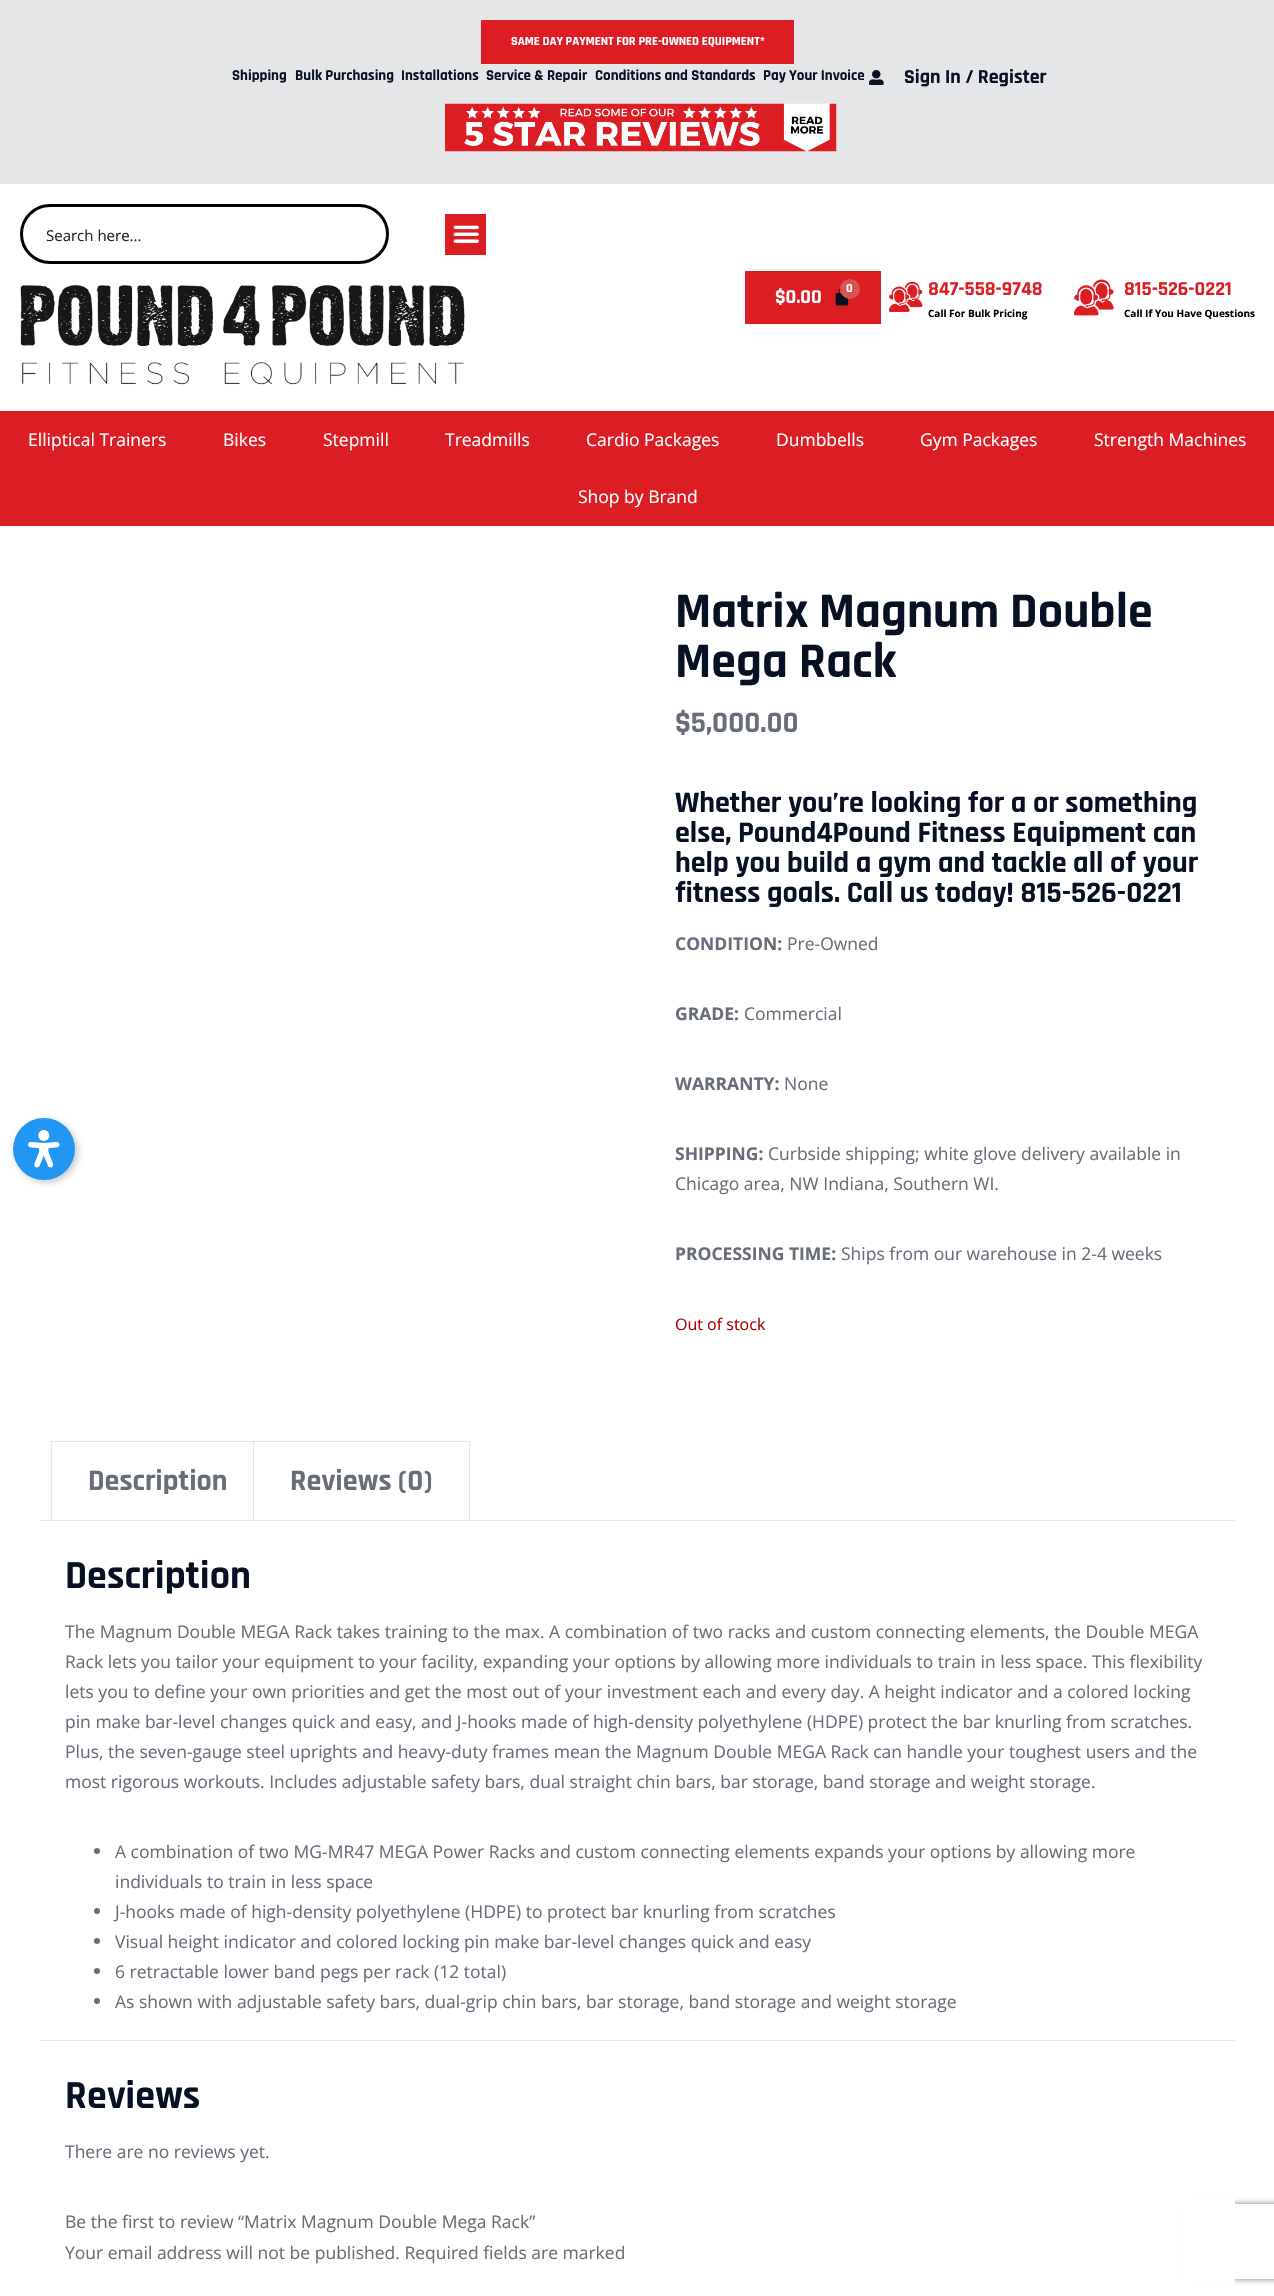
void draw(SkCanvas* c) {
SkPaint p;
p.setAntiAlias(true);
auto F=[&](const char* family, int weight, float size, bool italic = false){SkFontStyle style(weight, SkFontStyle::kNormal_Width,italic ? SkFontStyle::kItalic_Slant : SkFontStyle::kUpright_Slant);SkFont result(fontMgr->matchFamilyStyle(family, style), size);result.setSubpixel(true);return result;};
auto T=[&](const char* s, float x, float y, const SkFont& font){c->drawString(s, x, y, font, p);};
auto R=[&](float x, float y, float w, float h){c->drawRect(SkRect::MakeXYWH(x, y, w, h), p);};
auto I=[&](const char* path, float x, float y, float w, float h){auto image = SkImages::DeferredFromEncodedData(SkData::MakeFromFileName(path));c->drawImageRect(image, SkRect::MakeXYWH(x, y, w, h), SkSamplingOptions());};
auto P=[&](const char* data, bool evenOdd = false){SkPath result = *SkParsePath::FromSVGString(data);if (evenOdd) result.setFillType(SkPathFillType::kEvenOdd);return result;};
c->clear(0xffffffff);
p.setColor(0xffe5e6e8);
R(0,0,1274,184);
p.setColor(0xffdc1d24);
R(481,20,313,44);
auto f1 = F("Rajdhani",700,12.5);
p.setColor(0xffffffff);
T("SAME DAY PAYMENT FOR PRE-OWNED EQUIPMENT*",511,45,f1);
auto f2 = F("Rajdhani",700,15);
p.setColor(0xff081124);
T("Shipping",232,80,f2);
T("Bulk Purchasing",295,80,f2);
T("Installations",401,80,f2);
T("Service & Repair",486,80,f2);
T("Conditions and Standards",595,80,f2);
T("Pay Your Invoice",763,80,f2);
I("1.png",869,70,15,15);
auto f3 = F("Rajdhani",700,20);
T("Sign In / Register",904,83,f3);
I("2.png",445,103,392,49);
p.setStroke(true);
p.setStrokeWidth(3);
p.setColor(0xff000000);
c->drawRoundRect(SkRect::MakeXYWH(21.5,205.5,366,57),28.5,28.5,p);
auto f4 = F("Open Sans",400,15);
p.setStroke(false);
p.setColor(0xff262626);
T("Search here...",46,241,f4);
p.setColor(0xffdc1d24);
R(445,214,41,41);
I("3.png",453,225,26,18);
I("4.png",20,285,445,100);
R(745,271,136,53);
p.setColor(0xffffffff);
T("$0.00",775,303,f3);
I("5.png",835,288,14,18);
p.setColor(0xffd9534f);
c->drawCircle(850,289,10,p);
p.setColor(0xffffffff);
T("0",846,292,f1);
I("6.png",889,281,34,31);
p.setColor(0xffdc1d24);
T("847-558-9748",928,295,f3);
auto f5 = F("Open Sans",700,10);
p.setColor(0xff000000);
T("Call For Bulk Pricing",928,317,f5);
I("7.png",1074,279,40,37);
p.setColor(0xffdc1d24);
T("815-526-0221",1124,295,f3);
p.setColor(0xff000000);
T("Call If You Have Questions",1124,317,f5);
p.setColor(0xffdc1d24);
R(0,411,1274,115);
auto f6 = F("Open Sans",400,17.5);
p.setColor(0xffffffff);
T("Elliptical Trainers",28,446,f6);
T("Bikes",223,446,f6);
T("Stepmill",323,446,f6);
T("Treadmills",445,446,f6);
T("Cardio Packages",586,446,f6);
T("Dumbbells",776,446,f6);
T("Gym Packages",920,446,f6);
T("Strength Machines",1094,446,f6);
T("Shop by Brand",578,503,f6);
p.setColor(0x33000000);
p.setMaskFilter(SkMaskFilter::MakeBlur(kNormal_SkBlurStyle, 3));
c->drawRoundRect(SkRect::MakeXYWH(15,1120,63,63),31.5,31.5,p);
p.setMaskFilter(nullptr);
p.setColor(0xff2196f3);
c->drawCircle(44,1149,31,p);
I("8.png",28,1130,32,38);
auto f7 = F("Rajdhani",700,50);
p.setColor(0xff081124);
T("Matrix Magnum Double",675,627,f7);
T("Mega Rack",675,677,f7);
auto f8 = F("Rajdhani",700,30);
p.setColor(0xff686d77);
T("$5,000.00",675,732,f8);
p.setColor(0xff081124);
T("Whether you’re looking for a or something",675,812,f8);
T("else, Pound4Pound Fitness Equipment can",675,842,f8);
T("help you build a gym and tackle all of your",675,872,f8);
T("fitness goals. Call us today! 815-526-0221",675,902,f8);
auto f9 = F("Open Sans",700,17.5);
p.setColor(0xff686d77);
T("CONDITION:",675,950,f9);
T("Pre-Owned",787,950,f6);
T("GRADE:",675,1020,f9);
T("Commercial",744,1020,f6);
T("WARRANTY:",675,1090,f9);
T("None",784,1090,f6);
T("SHIPPING:",675,1160,f9);
T("Curbside shipping; white glove delivery available in",768,1160,f6);
T("Chicago area, NW Indiana, Southern WI.",675,1190,f6);
T("PROCESSING TIME:",675,1260,f9);
T("Ships from our warehouse in 2-4 weeks",841,1260,f6);
auto f10 = F("Open Sans",400,16);
p.setColor(0xffaa0000);
T("Out of stock",675,1330,f10);
p.setColor(0xffe5e6e8);
R(40,1520,1195,1);
p.setStroke(true);
p.setStrokeWidth(1);
c->drawRect(SkRect::MakeXYWH(51.5,1441.5,213,79),p);
p.setStroke(false);
p.setColor(0xff686d77);
T("Description",88,1490,f8);
p.setColor(0xffffffff);
R(264,1442,1,78);
p.setStroke(true);
p.setColor(0xffe5e6e8);
c->drawRect(SkRect::MakeXYWH(253.5,1441.5,216,79),p);
p.setStroke(false);
p.setColor(0xff686d77);
T("Reviews (0)",290,1490,f8);
auto f11 = F("Rajdhani",700,40);
p.setColor(0xff081124);
T("Description",65,1588,f11);
p.setColor(0xff686d77);
T("The Magnum Double MEGA Rack takes training to the max. A combination of two racks and custom connecting elements, the Double MEGA",65,1638,f6);
T("Rack lets you tailor your equipment to your facility, expanding your options by allowing more individuals to train in less space. This flexibility",65,1668,f6);
T("lets you to define your own priorities and get the most out of your investment each and every day. A height indicator and a colored locking",65,1698,f6);
T("pin make bar-level changes quick and easy, and J-hooks made of high-density polyethylene (HDPE) protect the bar knurling from scratches.",65,1728,f6);
T("Plus, the seven-gauge steel uprights and heavy-duty frames mean the Magnum Double MEGA Rack can handle your toughest users and the",65,1758,f6);
T("most rigorous workouts. Includes adjustable safety bars, dual straight chin bars, bar storage, band storage and weight storage.",65,1788,f6);
c->drawCircle(97,1851,3,p);
T("A combination of two MG-MR47 MEGA Power Racks and custom connecting elements expands your options by allowing more",115,1858,f6);
T("individuals to train in less space",115,1888,f6);
c->drawCircle(97,1911,3,p);
T("J-hooks made of high-density polyethylene (HDPE) to protect bar knurling from scratches",115,1918,f6);
c->drawCircle(97,1941,3,p);
T("Visual height indicator and colored locking pin make bar-level changes quick and easy",115,1948,f6);
c->drawCircle(97,1971,3,p);
T("6 retractable lower band pegs per rack (12 total)",115,1978,f6);
c->drawCircle(97,2001,3,p);
T("As shown with adjustable safety bars, dual-grip chin bars, bar storage, band storage and weight storage",115,2008,f6);
c->save();
c->clipPath(P("M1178 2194h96v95h-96zm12.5 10h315c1.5 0 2.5 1 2.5 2.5v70c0 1.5-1 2.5-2.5 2.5h-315c-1.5 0-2.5-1-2.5-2.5v-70c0-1.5 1-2.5 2.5-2.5z",true),true);
p.setColor(0xff808080);
p.setMaskFilter(SkMaskFilter::MakeBlur(kNormal_SkBlurStyle, 3));
c->drawRoundRect(SkRect::MakeXYWH(1188,2204,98,75),2.5,2.5,p);
p.setMaskFilter(nullptr);
c->restore();
p.setColor(0xffffffff);
R(1182,2198,53,87);
p.setColor(0xffe5e6e8);
R(40,2040,1195,1);
p.setColor(0xff081124);
T("Reviews",65,2108,f11);
p.setColor(0xff686d77);
T("There are no reviews yet.",65,2158,f6);
T("Be the first to review “Matrix Magnum Double Mega Rack”",65,2228,f6);
T("Your email address will not be published. Required fields are marked",65,2259,f6);
}
